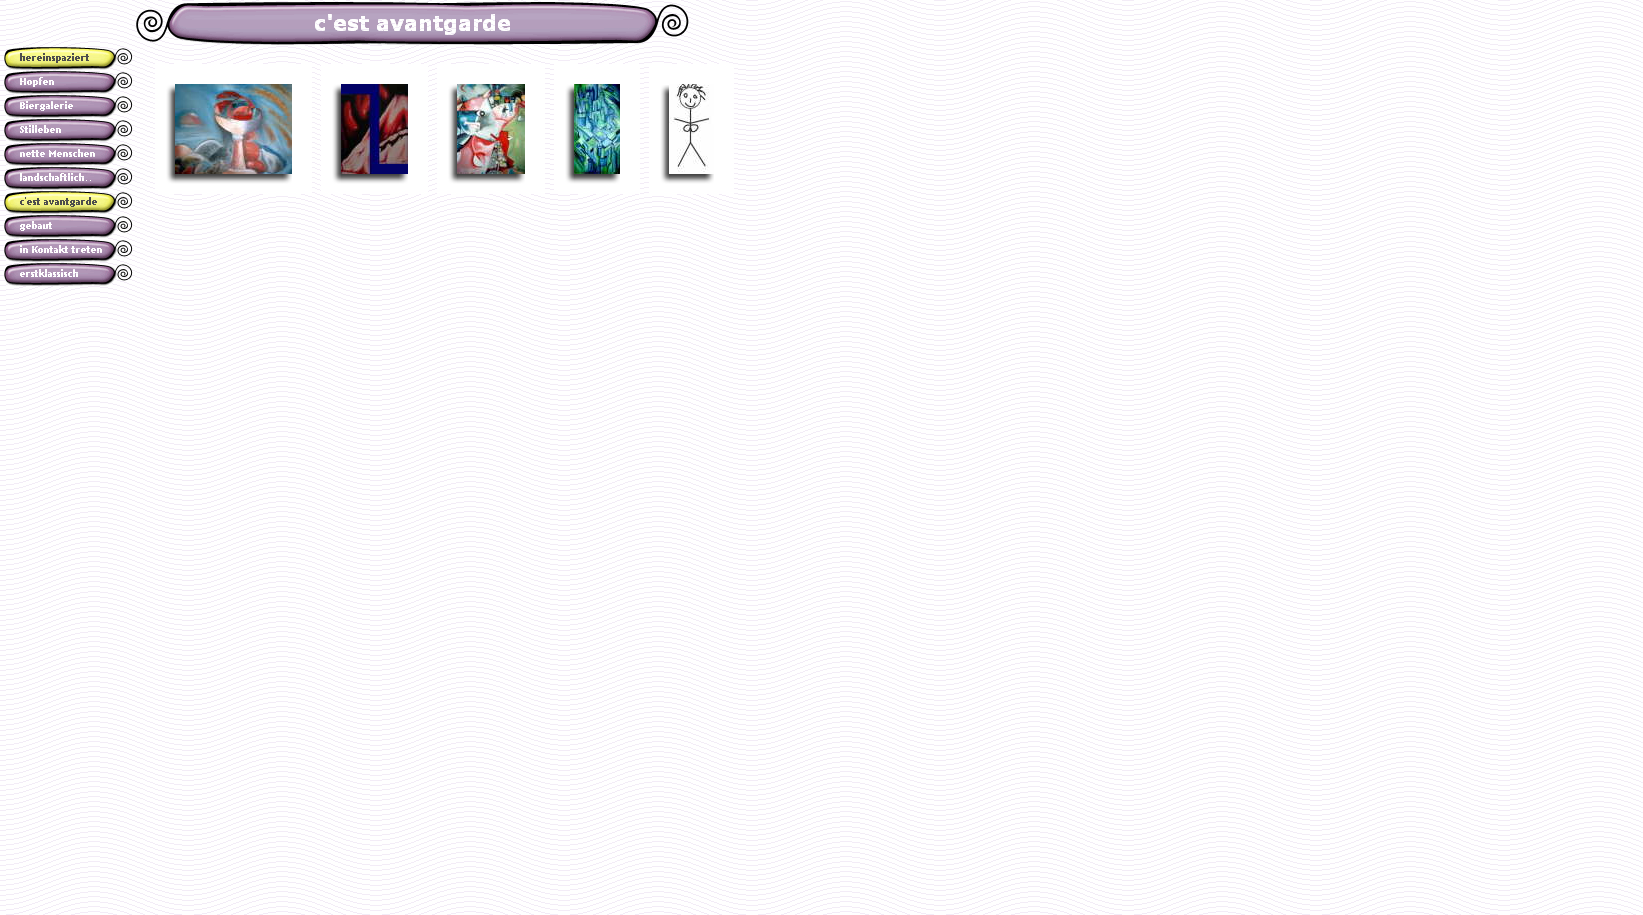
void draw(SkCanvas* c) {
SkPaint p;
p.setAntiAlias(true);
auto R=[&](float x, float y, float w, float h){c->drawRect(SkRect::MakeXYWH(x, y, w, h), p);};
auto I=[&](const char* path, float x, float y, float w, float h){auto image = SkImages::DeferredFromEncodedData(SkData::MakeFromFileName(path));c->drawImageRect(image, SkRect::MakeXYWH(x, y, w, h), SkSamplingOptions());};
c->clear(0xffffffff);
I("1.png",0,0,1643,915);
I("2.png",136,2,553,43);
I("3.png",4,47,129,23);
I("4.png",4,71,129,23);
I("5.png",4,95,129,23);
I("6.png",4,119,129,23);
I("7.png",4,143,129,23);
I("8.png",4,167,129,23);
I("9.png",4,191,129,23);
I("10.png",4,215,129,23);
I("11.png",4,239,129,23);
I("12.png",4,263,129,23);
p.setColor(0xffffffff);
R(155,64,137,20);
I("13.png",155,84,20,90);
I("14.png",175,84,117,90);
R(292,64,20,130);
I("15.png",155,174,20,20);
I("16.png",175,174,117,20);
I("17.png",283,174,9,10);
R(321,64,87,20);
I("13.png",321,84,20,90);
I("18.png",341,84,67,90);
R(408,64,20,130);
I("15.png",321,174,20,20);
I("19.png",341,174,67,20);
I("20.png",399,174,9,10);
R(437,64,88,20);
I("13.png",437,84,20,90);
I("21.png",457,84,68,90);
R(525,64,20,130);
I("15.png",437,174,20,20);
I("22.png",457,174,68,20);
I("17.png",516,174,9,10);
R(554,64,20,17);
R(574,64,46,20);
I("13.png",554,84,20,90);
I("23.png",574,84,46,90);
R(620,64,20,130);
I("24.png",554,174,20,17);
I("25.png",574,174,46,20);
I("17.png",611,174,9,10);
R(649,66,20,17);
R(669,64,45,20);
I("26.png",649,85,20,89);
I("27.png",669,84,45,90);
R(714,64,20,130);
I("28.png",649,174,20,19);
I("29.png",669,174,45,20);
I("20.png",705,174,9,10);
}
